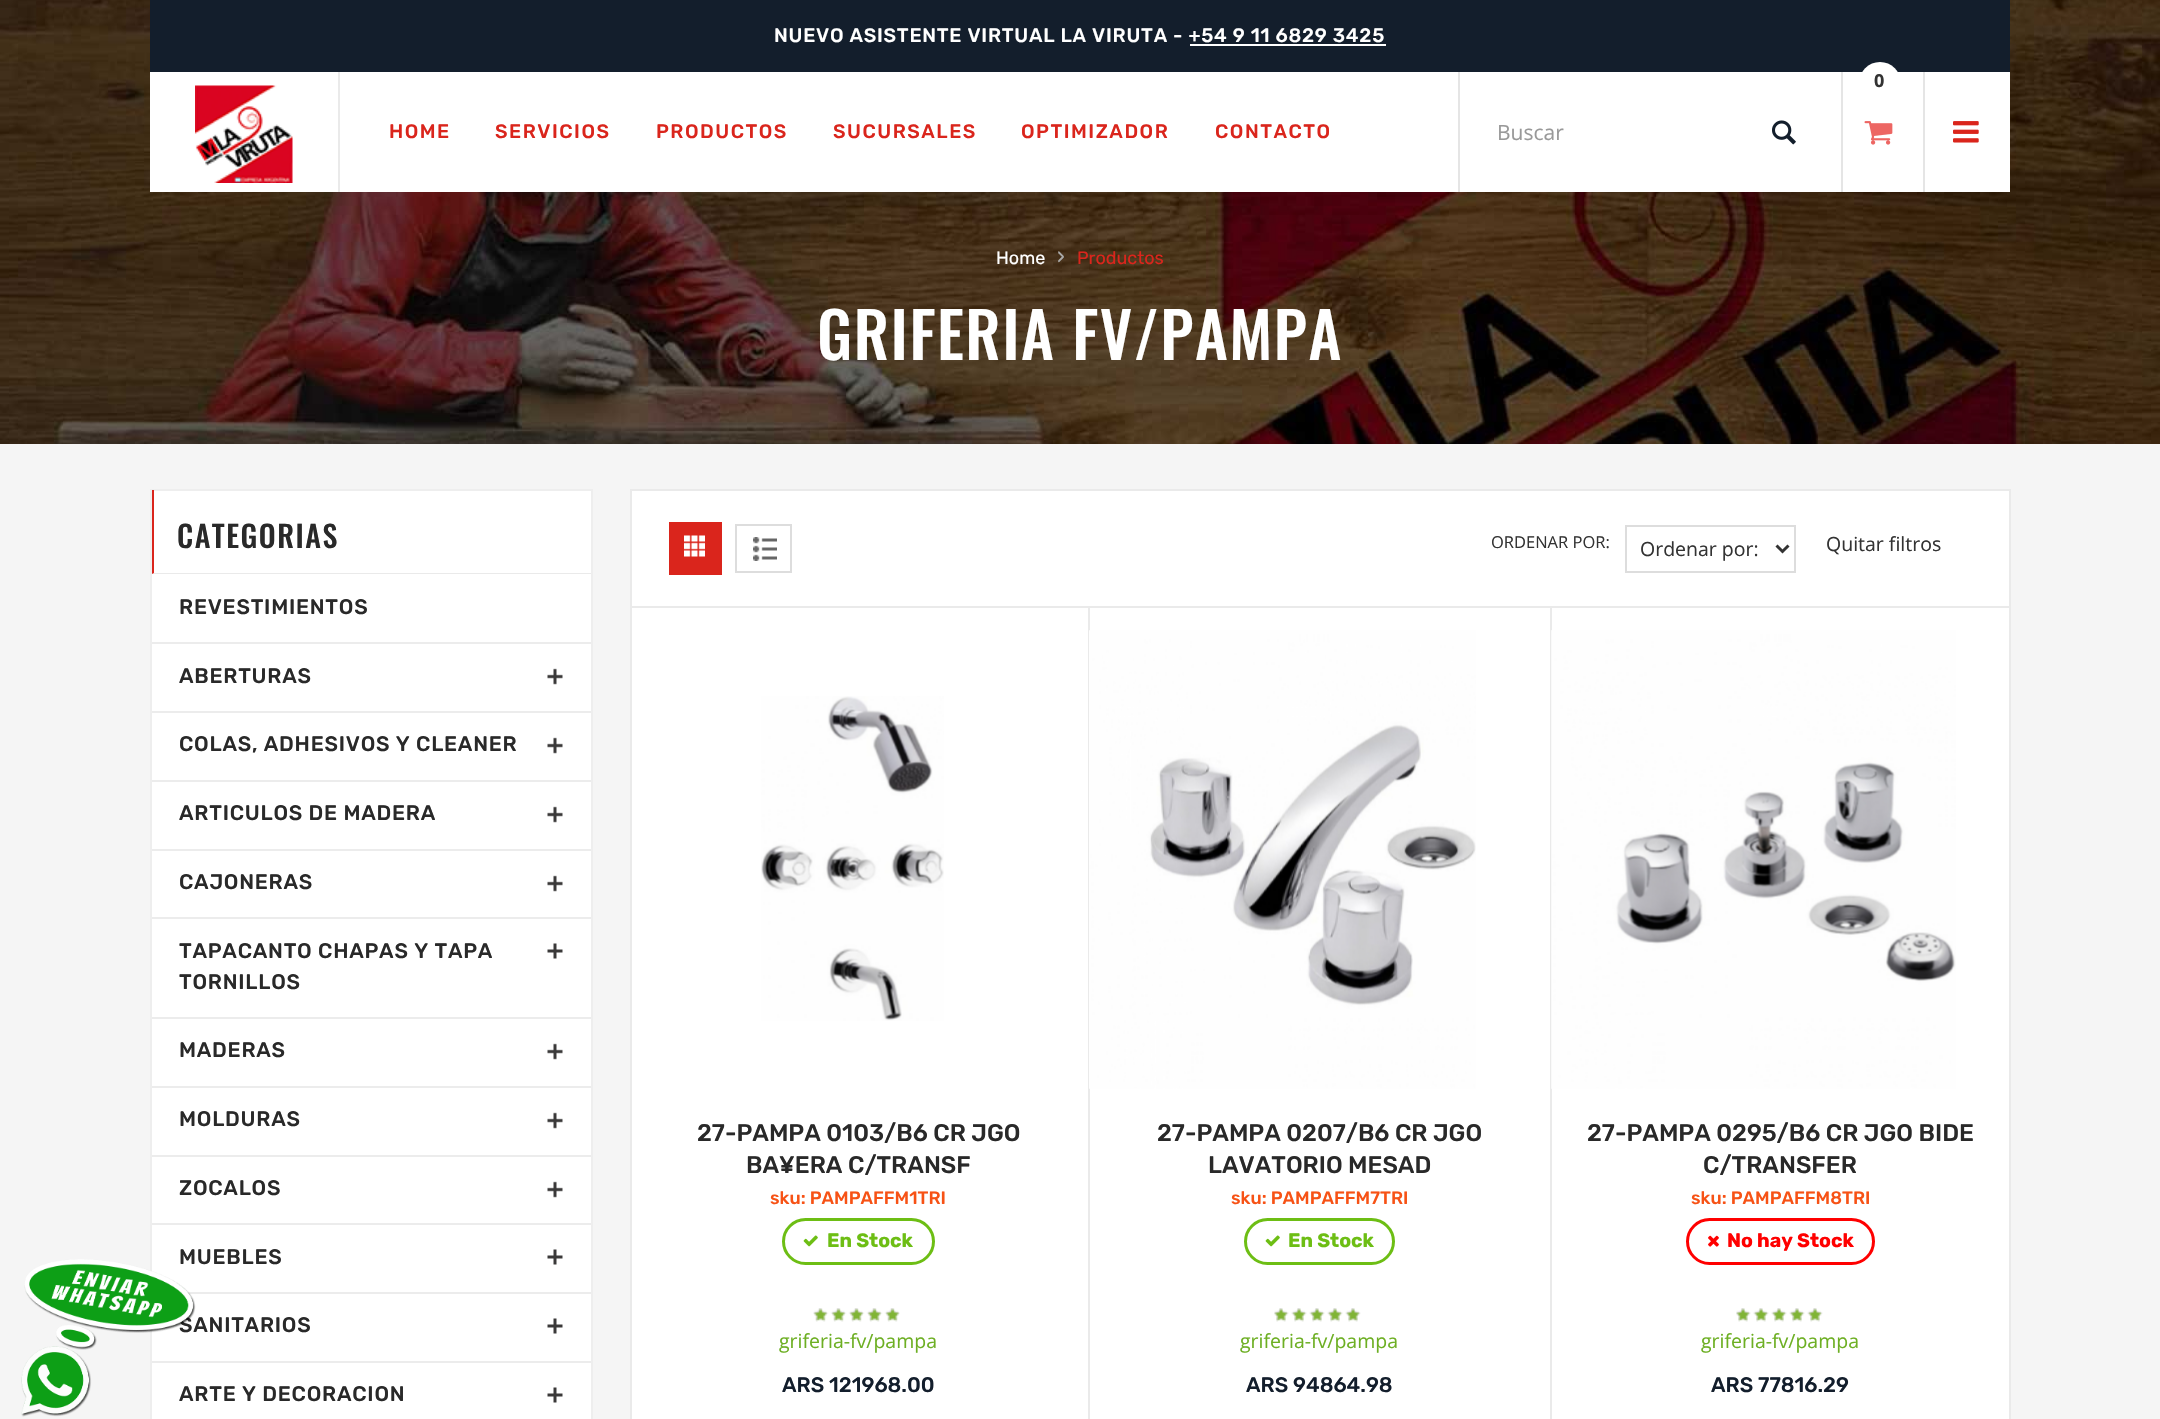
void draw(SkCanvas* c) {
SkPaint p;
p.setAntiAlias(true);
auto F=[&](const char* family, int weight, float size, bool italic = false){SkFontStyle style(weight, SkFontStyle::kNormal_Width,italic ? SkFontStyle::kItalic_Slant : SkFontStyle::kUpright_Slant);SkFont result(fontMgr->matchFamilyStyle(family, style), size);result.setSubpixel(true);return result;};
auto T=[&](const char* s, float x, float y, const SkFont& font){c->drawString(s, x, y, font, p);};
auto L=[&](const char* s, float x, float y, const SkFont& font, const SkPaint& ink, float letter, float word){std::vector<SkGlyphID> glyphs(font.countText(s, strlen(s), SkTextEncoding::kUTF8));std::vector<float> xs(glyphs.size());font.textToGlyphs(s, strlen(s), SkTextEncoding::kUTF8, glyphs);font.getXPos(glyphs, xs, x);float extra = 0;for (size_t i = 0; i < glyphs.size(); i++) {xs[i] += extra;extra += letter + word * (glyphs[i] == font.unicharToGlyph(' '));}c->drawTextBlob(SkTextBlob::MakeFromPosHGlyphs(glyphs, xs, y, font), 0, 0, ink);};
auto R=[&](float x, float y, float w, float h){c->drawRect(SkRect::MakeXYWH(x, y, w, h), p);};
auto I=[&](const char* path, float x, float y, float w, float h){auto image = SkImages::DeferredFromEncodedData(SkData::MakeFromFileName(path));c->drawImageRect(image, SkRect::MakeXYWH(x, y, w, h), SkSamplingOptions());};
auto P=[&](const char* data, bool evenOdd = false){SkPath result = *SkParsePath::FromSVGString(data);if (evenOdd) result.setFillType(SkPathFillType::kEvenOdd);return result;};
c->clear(0xfff5f5f5);
p.setColor(0xffffffff);
R(152,491,439,928);
p.setColor(0xffeeeeee);
R(150,489,443,2);
R(150,489,2,930);
p.setColor(0xffececec);
R(186,1292,405,2);
auto f1 = F("Rubik",500,21);
p.setColor(0xff292929);
L("MUEBLES",179,1264,f1,p,.75,0);
p.setColor(0xffececec);
R(152,1361,439,2);
p.setColor(0xff292929);
L("SANITARIOS",179,1332,f1,p,.75,0);
L("ARTE Y DECORACION",179,1401,f1,p,.75,0);
I("1.png",21,1259,175,158);
I("6.png",0,0,2160,444);
p.setColor(0xff131e2c);
R(150,0,1860,72);
auto f2 = F("Rubik",500,19.5);
p.setColor(0xffffffff);
L("NUEVO ASISTENTE VIRTUAL LA VIRUTA - +54 9 11 6829 3425",774,42,f2,p,.75,0);
R(1190,44,196,2);
R(150,72,1860,120);
p.setColor(0xffeaeaea);
R(338,72,2,120);
I("2.png",195,85,98,98);
p.setColor(0xffda251c);
L("HOME",389,138,f2,p,1.5,0);
L("SERVICIOS",495,138,f2,p,1.5,0);
L("PRODUCTOS",656,138,f2,p,1.5,0);
L("SUCURSALES",833,138,f2,p,1.5,0);
L("OPTIMIZADOR",1021,138,f2,p,1.5,0);
L("CONTACTO",1215,138,f2,p,1.5,0);
p.setColor(0xffe5e5e5);
R(1841,72,2,120);
p.setColor(0xffffffff);
c->drawCircle(1880,83,21,p);
auto f3 = F("Open Sans",700,18);
p.setColor(0xff333333);
L("0",1874,87,f3,p,.75,0);
I("3.png",1864,121,29,24);
p.setColor(0xffe5e5e5);
R(1923,72,2,120);
I("4.png",1953,121,26,22);
R(1458,72,2,120);
auto f4 = F("Open Sans",400,21);
p.setColor(0xff999999);
T("Buscar",1497,140,f4);
I("5.png",1772,120,24,25);
auto f5 = F("Rubik",400,18);
p.setColor(0xffffffff);
T("Home",996,264,f5);
auto f6 = F("Rubik",400,22);
p.setColor(0xffaaaaaa);
T("›",1057,264,f6);
p.setColor(0xffda251c);
T("Productos",1077,264,f5);
auto f7 = F("Oswald",500,63);
p.setColor(0xffffffff);
L("GRIFERIA FV/PAMPA",817,360,f7,p,1.5,0);
p.setColor(0xffeeeeee);
R(591,489,2,930);
p.setColor(0xffeaeaea);
c->drawPath(P("M591 574h-439l2-1h437z"),p);
p.setColor(0xffda251c);
c->drawPath(P("M152 574v-84h2v83z"),p);
auto f8 = F("Oswald",500,30);
p.setColor(0xff292929);
L("CATEGORIAS",177,548,f8,p,1.5,0);
p.setColor(0xffececec);
R(152,642,439,2);
p.setColor(0xff292929);
L("REVESTIMIENTOS",179,614,f1,p,.75,0);
p.setColor(0xffececec);
R(152,711,439,2);
p.setColor(0xff292929);
L("ABERTURAS",179,683,f1,p,.75,0);
I("7.png",547,668,16,17);
p.setColor(0xffececec);
R(152,780,439,2);
p.setColor(0xff292929);
L("COLAS, ADHESIVOS Y CLEANER",179,751,f1,p,.75,0);
I("7.png",547,737,16,17);
p.setColor(0xffececec);
R(152,849,439,2);
p.setColor(0xff292929);
L("ARTICULOS DE MADERA",179,820,f1,p,.75,0);
I("7.png",547,806,16,17);
p.setColor(0xffececec);
R(152,917,439,2);
p.setColor(0xff292929);
L("CAJONERAS",179,889,f1,p,.75,0);
I("7.png",547,875,16,17);
p.setColor(0xffececec);
R(152,1017,439,2);
p.setColor(0xff292929);
L("TAPACANTO CHAPAS Y TAPA",179,958,f1,p,.75,0);
L("TORNILLOS",179,989,f1,p,.75,0);
I("8.png",547,943,16,16);
p.setColor(0xffececec);
R(152,1086,439,2);
p.setColor(0xff292929);
L("MADERAS",179,1057,f1,p,.75,0);
I("7.png",547,1043,16,17);
p.setColor(0xffececec);
R(152,1155,439,2);
p.setColor(0xff292929);
L("MOLDURAS",179,1126,f1,p,.75,0);
I("7.png",547,1112,16,17);
p.setColor(0xffececec);
R(152,1223,439,2);
p.setColor(0xff292929);
L("ZOCALOS",179,1195,f1,p,.75,0);
I("7.png",547,1181,16,17);
I("8.png",547,1249,16,16);
I("8.png",547,1318,16,16);
I("8.png",547,1387,16,16);
p.setColor(0xffffffff);
R(632,491,1377,928);
p.setColor(0xffeaeaea);
R(630,489,1380,2);
R(2009,489,2,930);
R(630,489,2,930);
R(632,606,1377,2);
p.setColor(0xffda251c);
R(669,522,53,53);
I("10.png",753,537,24,24);
p.setStroke(true);
p.setStrokeWidth(2);
p.setColor(0xffdddddd);
c->drawRect(SkRect::MakeXYWH(736,525,55,47),p);
I("9.png",684,535,21,22);
auto f9 = F("Open Sans",400,16.5);
p.setStroke(false);
p.setColor(0xff333333);
T("ORDENAR POR:",1491,548,f9);
p.setStroke(true);
p.setColor(0xffdddddd);
c->drawRect(SkRect::MakeXYWH(1626,526,169,46),p);
p.setStrokeWidth(3);
p.setColor(0xff333333);
c->drawPath(P("M1776.5 545.5l6 6l6-6"),p);
auto f10 = F("Open Sans",400,19.5);
p.setStroke(false);
T("Ordenar por:",1640,556,f10);
T("Quitar filtros",1826,551,f10);
p.setColor(0xffeaeaea);
R(1088,608,2,811);
I("11.png",761,696,183,325);
auto f11 = F("Rubik",500,24);
p.setColor(0xff292929);
T("27-PAMPA 0103/B6 CR JGO",697,1141,f11);
T("BA¥ERA C/TRANSF",746,1173,f11);
auto f12 = F("Rubik",500,18);
p.setColor(0xfff75215);
T("sku: PAMPAFFM1TRI",770,1204,f12);
p.setStroke(true);
p.setColor(0xff6dbe14);
c->drawRoundRect(SkRect::MakeXYWH(783.5,1219.5,150,44),22,22,p);
I("12.png",803,1235,15,12);
auto f13 = F("Rubik",700,19.5);
p.setStroke(false);
T("En Stock",827,1247,f13);
I("13.png",813,1308,87,14);
I("14.png",814,1308,85,14);
p.setColor(0xff6daf23);
T("griferia-fv/pampa",779,1348,f10);
p.setColor(0xff131e2c);
T("ARS 121968.00",782,1392,f1);
p.setColor(0xffeaeaea);
R(1550,608,2,811);
I("15.png",1089,630,387,459);
p.setColor(0xff292929);
T("27-PAMPA 0207/B6 CR JGO",1157,1141,f11);
T("LAVATORIO MESAD",1208,1173,f11);
p.setColor(0xfff75215);
T("sku: PAMPAFFM7TRI",1231,1204,f12);
p.setStroke(true);
p.setColor(0xff6dbe14);
c->drawRoundRect(SkRect::MakeXYWH(1245.5,1219.5,148,44),22,22,p);
I("12.png",1265,1235,15,12);
p.setStroke(false);
T("En Stock",1288,1247,f13);
I("16.png",1274,1308,87,14);
I("17.png",1274,1308,86,14);
p.setColor(0xff6daf23);
T("griferia-fv/pampa",1240,1348,f10);
p.setColor(0xff131e2c);
T("ARS 94864.98",1246,1392,f1);
I("18.png",1551,630,405,459);
p.setColor(0xff292929);
T("27-PAMPA 0295/B6 CR JGO BIDE",1587,1141,f11);
T("C/TRANSFER",1703,1173,f11);
p.setColor(0xfff75215);
T("sku: PAMPAFFM8TRI",1691,1204,f12);
p.setStroke(true);
p.setColor(0xffff0000);
c->drawRoundRect(SkRect::MakeXYWH(1687.5,1219.5,186,44),22,22,p);
I("19.png",1708,1235,11,12);
p.setStroke(false);
T("No hay Stock",1727,1247,f13);
I("20.png",1736,1308,87,14);
I("21.png",1736,1308,86,14);
p.setColor(0xff6daf23);
T("griferia-fv/pampa",1701,1348,f10);
p.setColor(0xff131e2c);
T("ARS 77816.29",1711,1392,f1);
}
